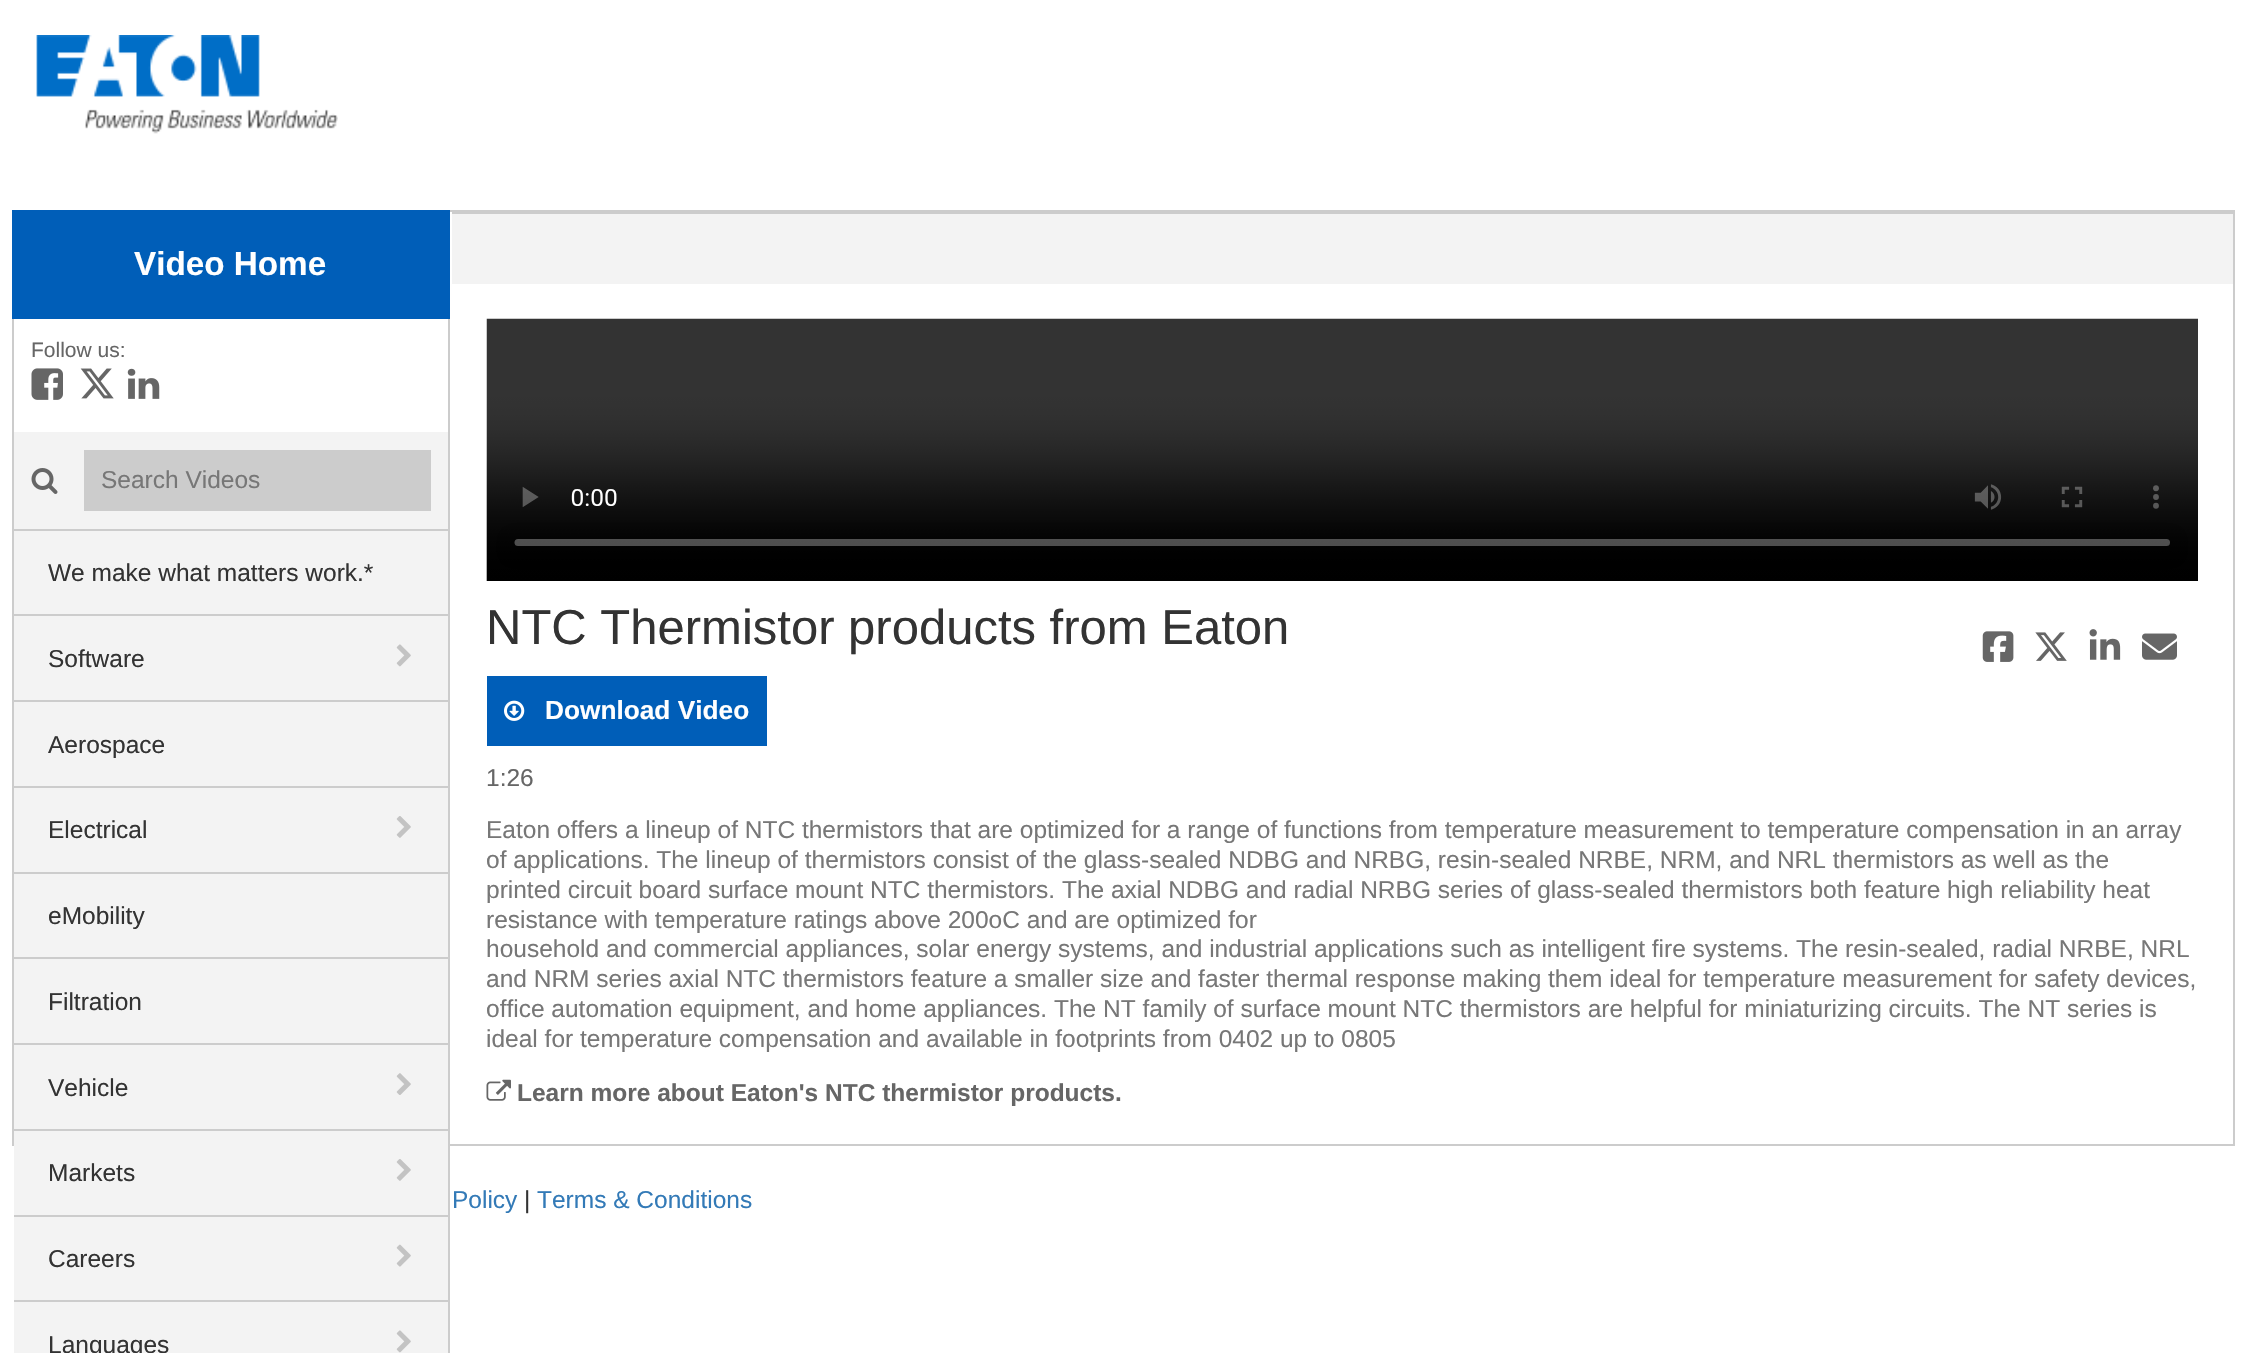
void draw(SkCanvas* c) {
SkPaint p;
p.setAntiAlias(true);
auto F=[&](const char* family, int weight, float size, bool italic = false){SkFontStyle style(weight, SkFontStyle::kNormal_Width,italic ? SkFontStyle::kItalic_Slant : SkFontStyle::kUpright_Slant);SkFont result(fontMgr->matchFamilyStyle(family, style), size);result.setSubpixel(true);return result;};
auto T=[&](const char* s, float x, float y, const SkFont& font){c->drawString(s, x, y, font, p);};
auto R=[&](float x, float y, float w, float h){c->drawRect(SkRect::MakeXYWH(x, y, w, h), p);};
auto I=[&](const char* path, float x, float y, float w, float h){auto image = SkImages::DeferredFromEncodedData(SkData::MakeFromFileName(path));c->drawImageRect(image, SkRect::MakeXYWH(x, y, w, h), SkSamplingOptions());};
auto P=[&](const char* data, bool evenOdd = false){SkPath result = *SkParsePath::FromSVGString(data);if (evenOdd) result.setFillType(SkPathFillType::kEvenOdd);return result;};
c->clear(0xffffffff);
I("1.png",36,35,302,99);
p.setColor(0xffcccccc);
R(2233,210,2,936);
R(12,319,2,827);
c->drawPath(P("M2233 1146h-2219l436-2h1783z"),p);
p.setColor(0xfff3f3f3);
R(14,432,434,921);
p.setColor(0xffcccccc);
R(448,319,2,1034);
c->drawPath(P("M14 210h2219v2h-1783z"),p);
p.setColor(0xff005eb8);
R(12,210,438,109);
auto f1 = F("Liberation Sans",700,33.25);
p.setColor(0xffffffff);
T("Video Home",134,275,f1);
auto f2 = F("Liberation Sans",400,21);
p.setColor(0xff666666);
T("Follow us:",31,357,f2);
I("2.png",31,368,32,32);
I("3.png",80,368,34,31);
I("4.png",127,368,33,31);
I("5.png",31,468,27,26);
p.setColor(0xffcccccc);
R(84,450,347,61);
auto f3 = F("Liberation Sans",400,24.5);
p.setColor(0xff777777);
T("Search Videos",101,488,f3);
p.setColor(0xffcccccc);
R(14,529,434,2);
R(14,614,434,2);
p.setColor(0xff333333);
T("We make what matters work.*",48,581,f3);
p.setColor(0xffcccccc);
R(14,700,434,2);
p.setColor(0xff333333);
T("Software",48,667,f3);
I("6.png",396,644,15,23);
p.setColor(0xffcccccc);
R(14,786,434,2);
p.setColor(0xff333333);
T("Aerospace",48,753,f3);
p.setColor(0xffcccccc);
R(14,872,434,2);
p.setColor(0xff333333);
T("Electrical",48,838,f3);
I("7.png",396,816,15,22);
p.setColor(0xffcccccc);
R(14,957,434,2);
p.setColor(0xff333333);
T("eMobility",48,924,f3);
p.setColor(0xffcccccc);
R(14,1043,434,2);
p.setColor(0xff333333);
T("Filtration",48,1010,f3);
p.setColor(0xffcccccc);
R(14,1129,434,2);
p.setColor(0xff333333);
T("Vehicle",48,1096,f3);
I("8.png",396,1073,15,22);
p.setColor(0xffcccccc);
R(14,1215,434,2);
p.setColor(0xff333333);
T("Markets",48,1181,f3);
I("7.png",396,1159,15,22);
p.setColor(0xffcccccc);
R(14,1300,434,2);
p.setColor(0xff333333);
T("Careers",48,1267,f3);
I("9.png",396,1244,15,23);
T("Languages",48,1353,f3);
I("6.png",396,1330,15,23);
p.setColor(0xfff3f3f3);
R(452,214,1781,70);
p.setColor(0xffcccccc);
R(452,212,1781,2);
I("10.png",486,318,1712,263);
auto f4 = F("Liberation Sans",400,49);
p.setColor(0xff333333);
T("NTC Thermistor products from Eaton",486,644,f4);
I("11.png",1982,631,32,31);
I("12.png",2035,632,32,29);
I("13.png",2089,629,32,31);
I("14.png",2142,633,35,27);
p.setColor(0xff005eb8);
R(487,676,280,70);
I("15.png",504,700,21,21);
auto f5 = F("Liberation Sans",700,26.25);
p.setColor(0xffffffff);
T("Download Video",545,719,f5);
p.setColor(0xff666666);
T("1:26",486,786,f3);
p.setColor(0xff777777);
T("Eaton offers a lineup of NTC thermistors that are optimized for a range of functions from temperature measurement to temperature compensation in an array",486,838,f3);
T("of applications. The lineup of thermistors consist of the glass-sealed NDBG and NRBG, resin-sealed NRBE, NRM, and NRL thermistors as well as the",486,868,f3);
T("printed circuit board surface mount NTC thermistors. The axial NDBG and radial NRBG series of glass-sealed thermistors both feature high reliability heat",486,898,f3);
T("resistance with temperature ratings above 200oC and are optimized for",486,928,f3);
T("household and commercial appliances, solar energy systems, and industrial applications such as intelligent fire systems. The resin-sealed, radial NRBE, NRL",486,957,f3);
T("and NRM series axial NTC thermistors feature a smaller size and faster thermal response making them ideal for temperature measurement for safety devices,",486,987,f3);
T("office automation equipment, and home appliances. The NT family of surface mount NTC thermistors are helpful for miniaturizing circuits. The NT series is",486,1017,f3);
T("ideal for temperature compensation and available in footprints from 0402 up to 0805",486,1047,f3);
I("16.png",486,1079,25,22);
auto f6 = F("Liberation Sans",700,24.5);
p.setColor(0xff666666);
T("Learn more about Eaton's NTC thermistor products.",517,1101,f6);
p.setColor(0xff337ab7);
T("Policy",452,1208,f3);
p.setColor(0xff333333);
T("|",524,1208,f3);
p.setColor(0xff337ab7);
T("Terms & Conditions",537,1208,f3);
}
